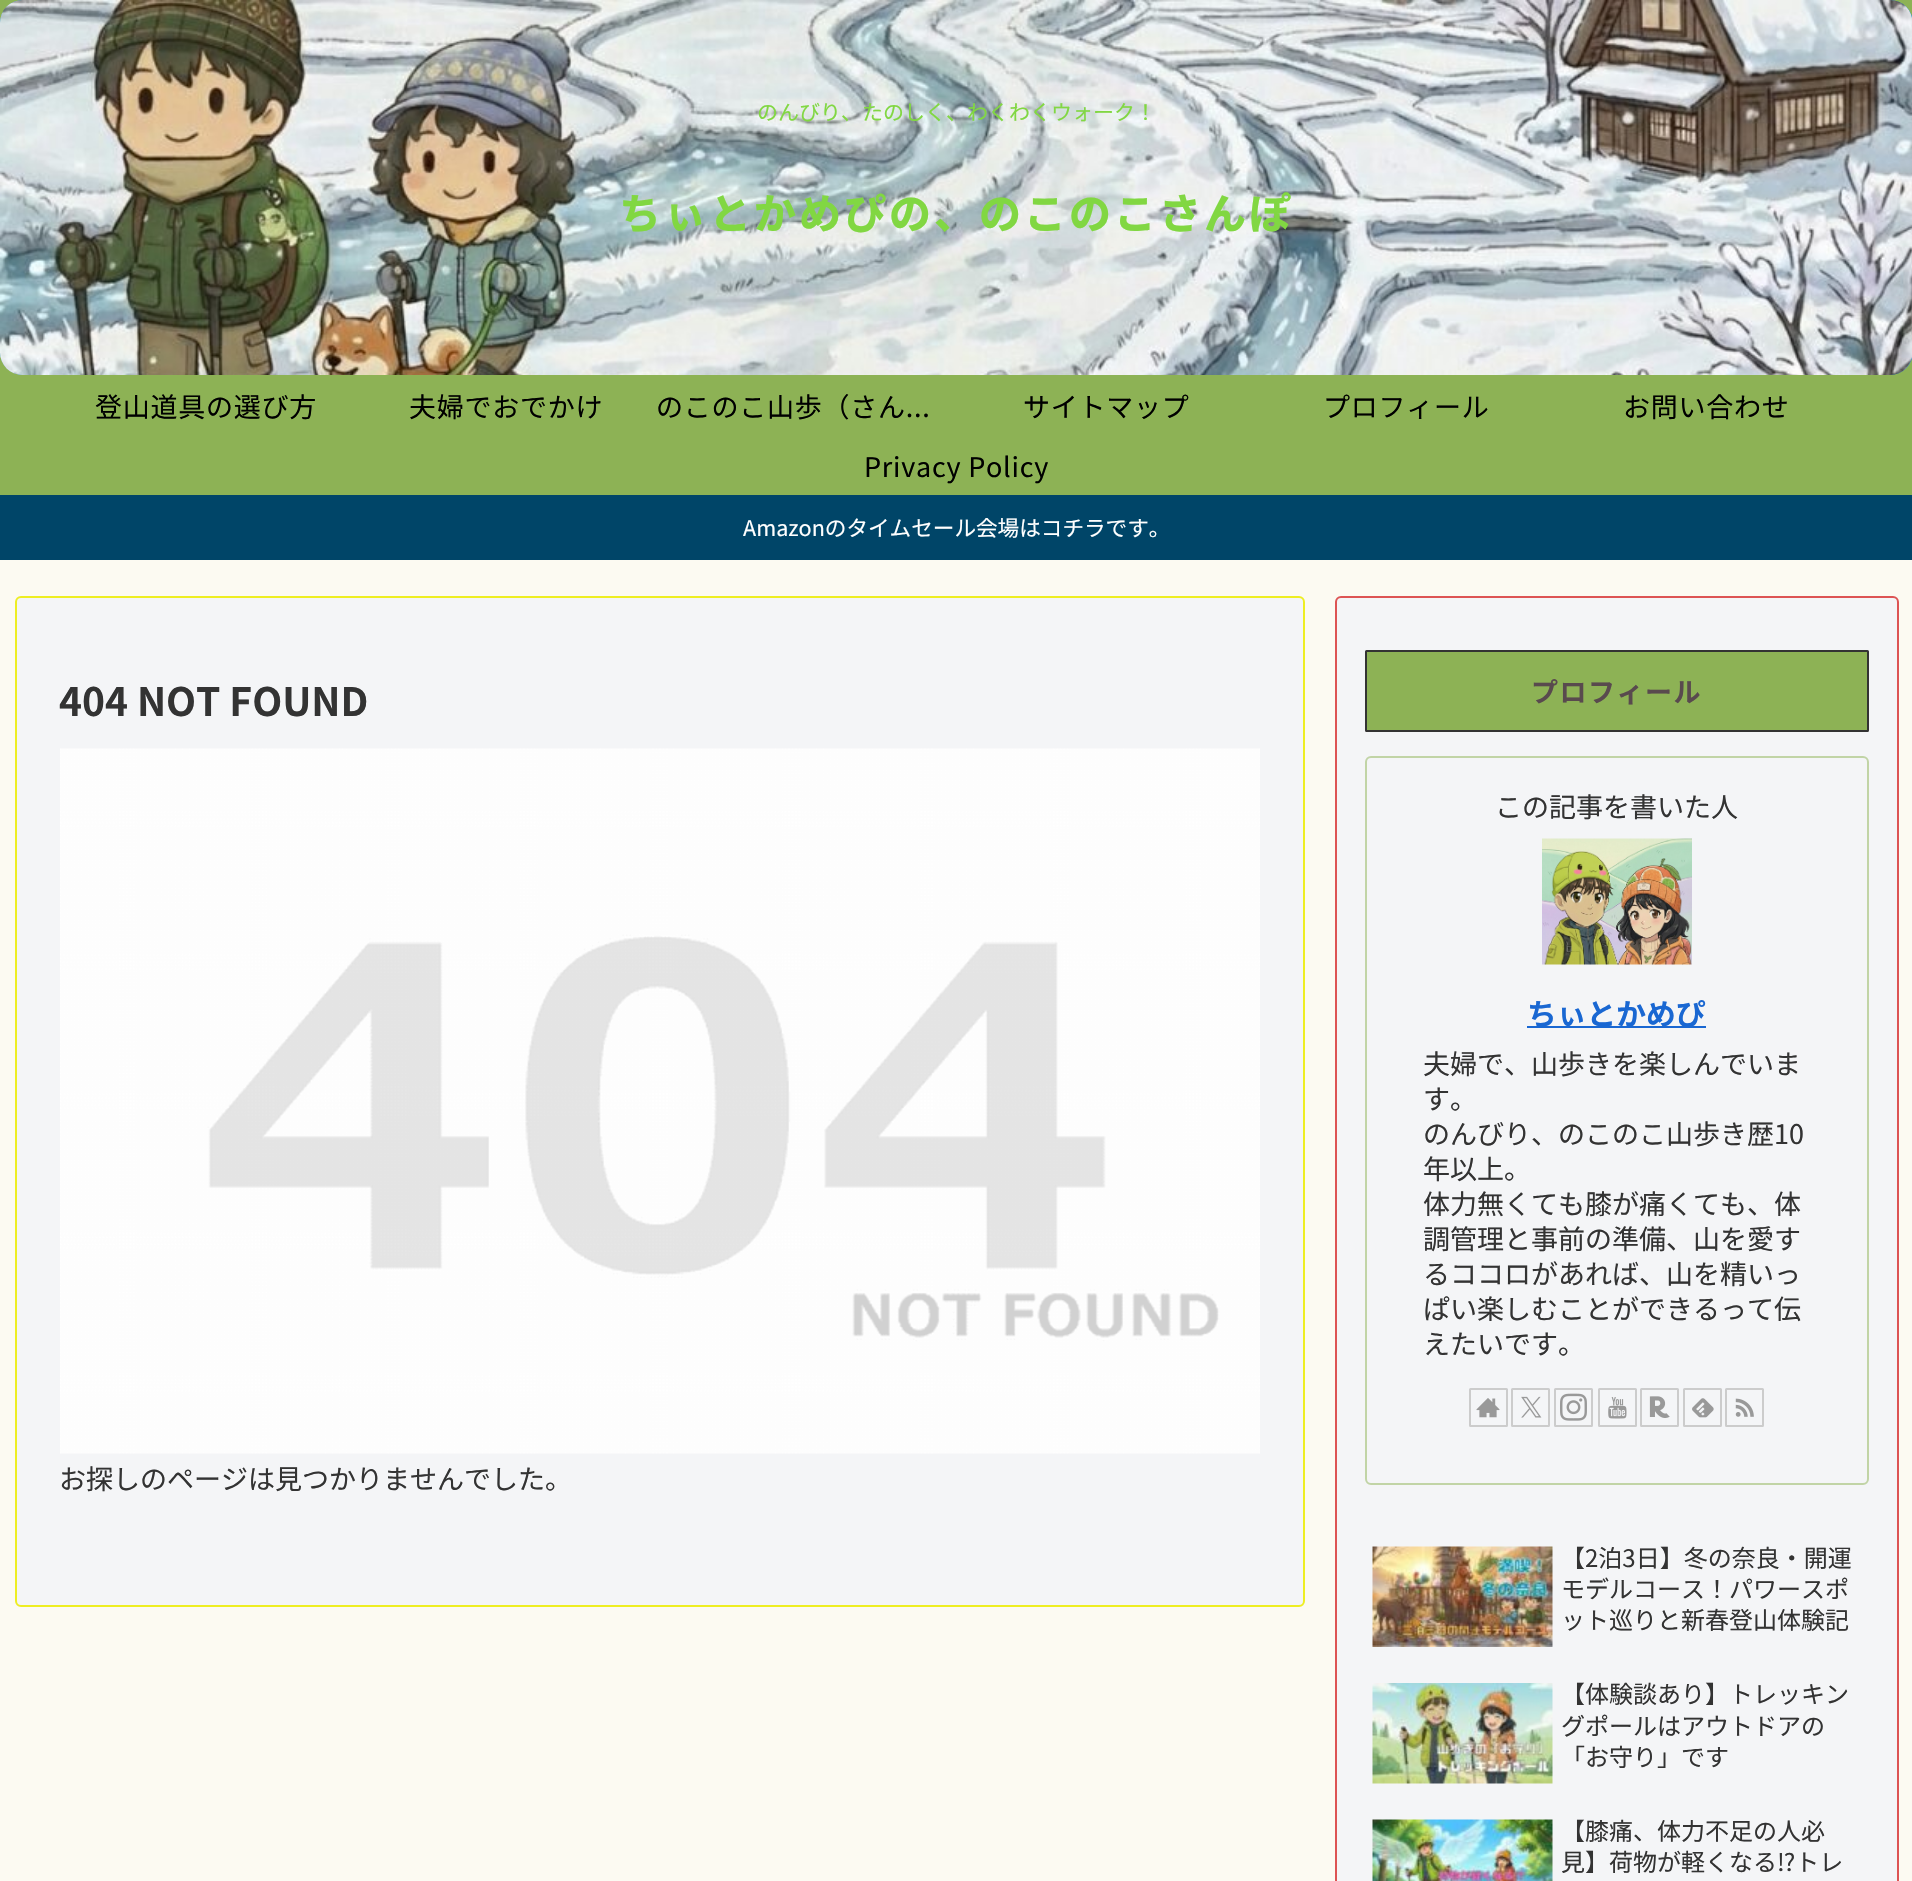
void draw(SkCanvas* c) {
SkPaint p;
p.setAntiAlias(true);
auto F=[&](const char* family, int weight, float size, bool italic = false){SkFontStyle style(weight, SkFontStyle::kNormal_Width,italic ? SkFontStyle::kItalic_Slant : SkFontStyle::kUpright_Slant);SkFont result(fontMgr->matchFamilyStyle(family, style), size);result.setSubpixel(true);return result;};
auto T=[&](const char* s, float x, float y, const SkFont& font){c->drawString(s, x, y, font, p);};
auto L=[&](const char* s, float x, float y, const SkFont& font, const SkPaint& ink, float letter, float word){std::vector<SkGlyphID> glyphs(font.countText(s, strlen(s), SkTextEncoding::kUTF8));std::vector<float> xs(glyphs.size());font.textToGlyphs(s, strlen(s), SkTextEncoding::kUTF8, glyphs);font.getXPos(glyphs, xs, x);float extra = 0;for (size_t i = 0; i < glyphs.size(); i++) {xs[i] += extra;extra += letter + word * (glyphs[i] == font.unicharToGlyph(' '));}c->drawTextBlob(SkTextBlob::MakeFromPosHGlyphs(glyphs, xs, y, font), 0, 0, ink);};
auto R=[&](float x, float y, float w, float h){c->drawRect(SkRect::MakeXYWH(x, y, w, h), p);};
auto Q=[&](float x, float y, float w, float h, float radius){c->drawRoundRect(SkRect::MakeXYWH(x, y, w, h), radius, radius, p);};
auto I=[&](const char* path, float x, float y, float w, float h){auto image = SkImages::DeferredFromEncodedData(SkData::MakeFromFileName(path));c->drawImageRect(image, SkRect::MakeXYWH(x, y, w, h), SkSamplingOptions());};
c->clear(0xfffcfaf2);
p.setColor(0xff8db255);
R(0,0,1912,495);
p.setColor(0xff3399cc);
Q(0,0,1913,375,23);
I("1.png",0,0,1912,375);
auto f1 = F("Noto Sans JP",400,21);
p.setColor(0xff81d742);
T("のんびり、たのしく、わくわくウォーク！",757,120,f1);
auto f2 = F("Noto Sans JP",800,42);
L("ちぃとかめぴの、のこのこさんぽ",619,229,f2,p,3,0);
auto f3 = F("Noto Sans JP",400,27);
p.setColor(0xff000000);
L("登山道具の選び方",95,417,f3,p,.75,0);
L("夫婦でおでかけ",409,417,f3,p,.75,0);
L("のこのこ山歩（さん...",656,417,f3,p,.75,0);
L("サイトマップ",1023,417,f3,p,.75,0);
L("プロフィール",1323,417,f3,p,.75,0);
L("お問い合わせ",1623,417,f3,p,.75,0);
L("Privacy Policy",864,477,f3,p,.75,0);
p.setColor(0xff004568);
R(0,495,1912,65);
auto f4 = F("Noto Sans JP",400,21.6);
p.setColor(0xffffffff);
T("Amazonのタイムセール会場はコチラです。",743,536,f4);
p.setColor(0xfff4f5f7);
c->drawRoundRect(SkRect::MakeXYWH(16,597,1288,1009),5,5,p);
p.setStroke(true);
p.setStrokeWidth(2);
p.setColor(0xffeeee22);
c->drawRoundRect(SkRect::MakeXYWH(16,597,1288,1009),5,5,p);
auto f5 = F("Noto Sans JP",700,39);
p.setStroke(false);
p.setColor(0xff333333);
T("404 NOT FOUND",59,716,f5);
I("2.png",60,748,1200,706);
T("お探しのページは見つかりませんでした。",59,1489,f3);
p.setColor(0xfff4f5f7);
c->drawRoundRect(SkRect::MakeXYWH(1336,597,562,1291),5,5,p);
p.setStroke(true);
p.setColor(0xffdd5454);
c->drawRoundRect(SkRect::MakeXYWH(1336,597,562,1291),5,5,p);
p.setStroke(false);
p.setColor(0xff8db255);
c->drawRoundRect(SkRect::MakeXYWH(1366,651,502,80),.5,.5,p);
p.setStroke(true);
p.setColor(0xff333333);
c->drawRoundRect(SkRect::MakeXYWH(1366,651,502,80),.5,.5,p);
auto f6 = F("Noto Sans JP",700,27);
p.setStroke(false);
p.setColor(0xff594a4e);
L("プロフィール",1531,702,f6,p,1.5,0);
p.setStroke(true);
p.setColor(0xffc1d4a6);
c->drawRoundRect(SkRect::MakeXYWH(1366,757,502,727),5,5,p);
p.setStroke(false);
p.setColor(0xff333333);
T("この記事を書いた人",1495,817,f3);
I("3.png",1542,838,150,127);
p.setColor(0xff1967d2);
R(1527,1026,179,2);
auto f7 = F("Noto Sans JP",700,29.75);
T("ちぃとかめぴ",1527,1025,f7);
p.setColor(0xff333333);
T("夫婦で、山歩きを楽しんでいま",1423,1074,f3);
T("す。",1423,1109,f3);
T("のんびり、のこのこ山歩き歴10",1423,1144,f3);
T("年以上。",1423,1179,f3);
T("体力無くても膝が痛くても、体",1423,1214,f3);
T("調管理と事前の準備、山を愛す",1423,1249,f3);
T("るココロがあれば、山を精いっ",1423,1284,f3);
T("ぱい楽しむことができるって伝",1423,1319,f3);
T("えたいです。",1423,1354,f3);
p.setStroke(true);
p.setColor(0xffcccccc);
c->drawRoundRect(SkRect::MakeXYWH(1470,1389,37,37),.5,.5,p);
I("4.png",1476,1398,24,20);
c->drawRoundRect(SkRect::MakeXYWH(1512,1389,37,37),.5,.5,p);
I("5.png",1521,1396,21,22);
c->drawRoundRect(SkRect::MakeXYWH(1555,1389,37,37),.5,.5,p);
I("6.png",1560,1393,27,28);
c->drawRoundRect(SkRect::MakeXYWH(1599,1389,37,37),.5,.5,p);
I("7.png",1608,1397,19,22);
c->drawRoundRect(SkRect::MakeXYWH(1641,1389,37,37),.5,.5,p);
I("8.png",1649,1396,21,22);
c->drawRoundRect(SkRect::MakeXYWH(1684,1389,37,37),.5,.5,p);
I("9.png",1692,1398,22,20);
c->drawRoundRect(SkRect::MakeXYWH(1726,1389,37,37),.5,.5,p);
I("10.png",1735,1398,19,19);
I("11.png",1372,1546,181,101);
auto f8 = F("Noto Sans JP",400,24);
p.setStroke(false);
p.setColor(0xff333333);
T("【2泊3日】冬の奈良・開運",1561,1567,f8);
T("モデルコース！パワースポ",1561,1598,f8);
T("ット巡りと新春登山体験記",1561,1629,f8);
I("12.png",1372,1683,181,101);
T("【体験談あり】トレッキン",1561,1703,f8);
T("グポールはアウトドアの",1561,1735,f8);
T("「お守り」です",1561,1766,f8);
I("13.png",1372,1819,181,62);
T("【膝痛、体力不足の人必",1561,1840,f8);
T("見】荷物が軽くなる⁉トレ",1561,1871,f8);
}
